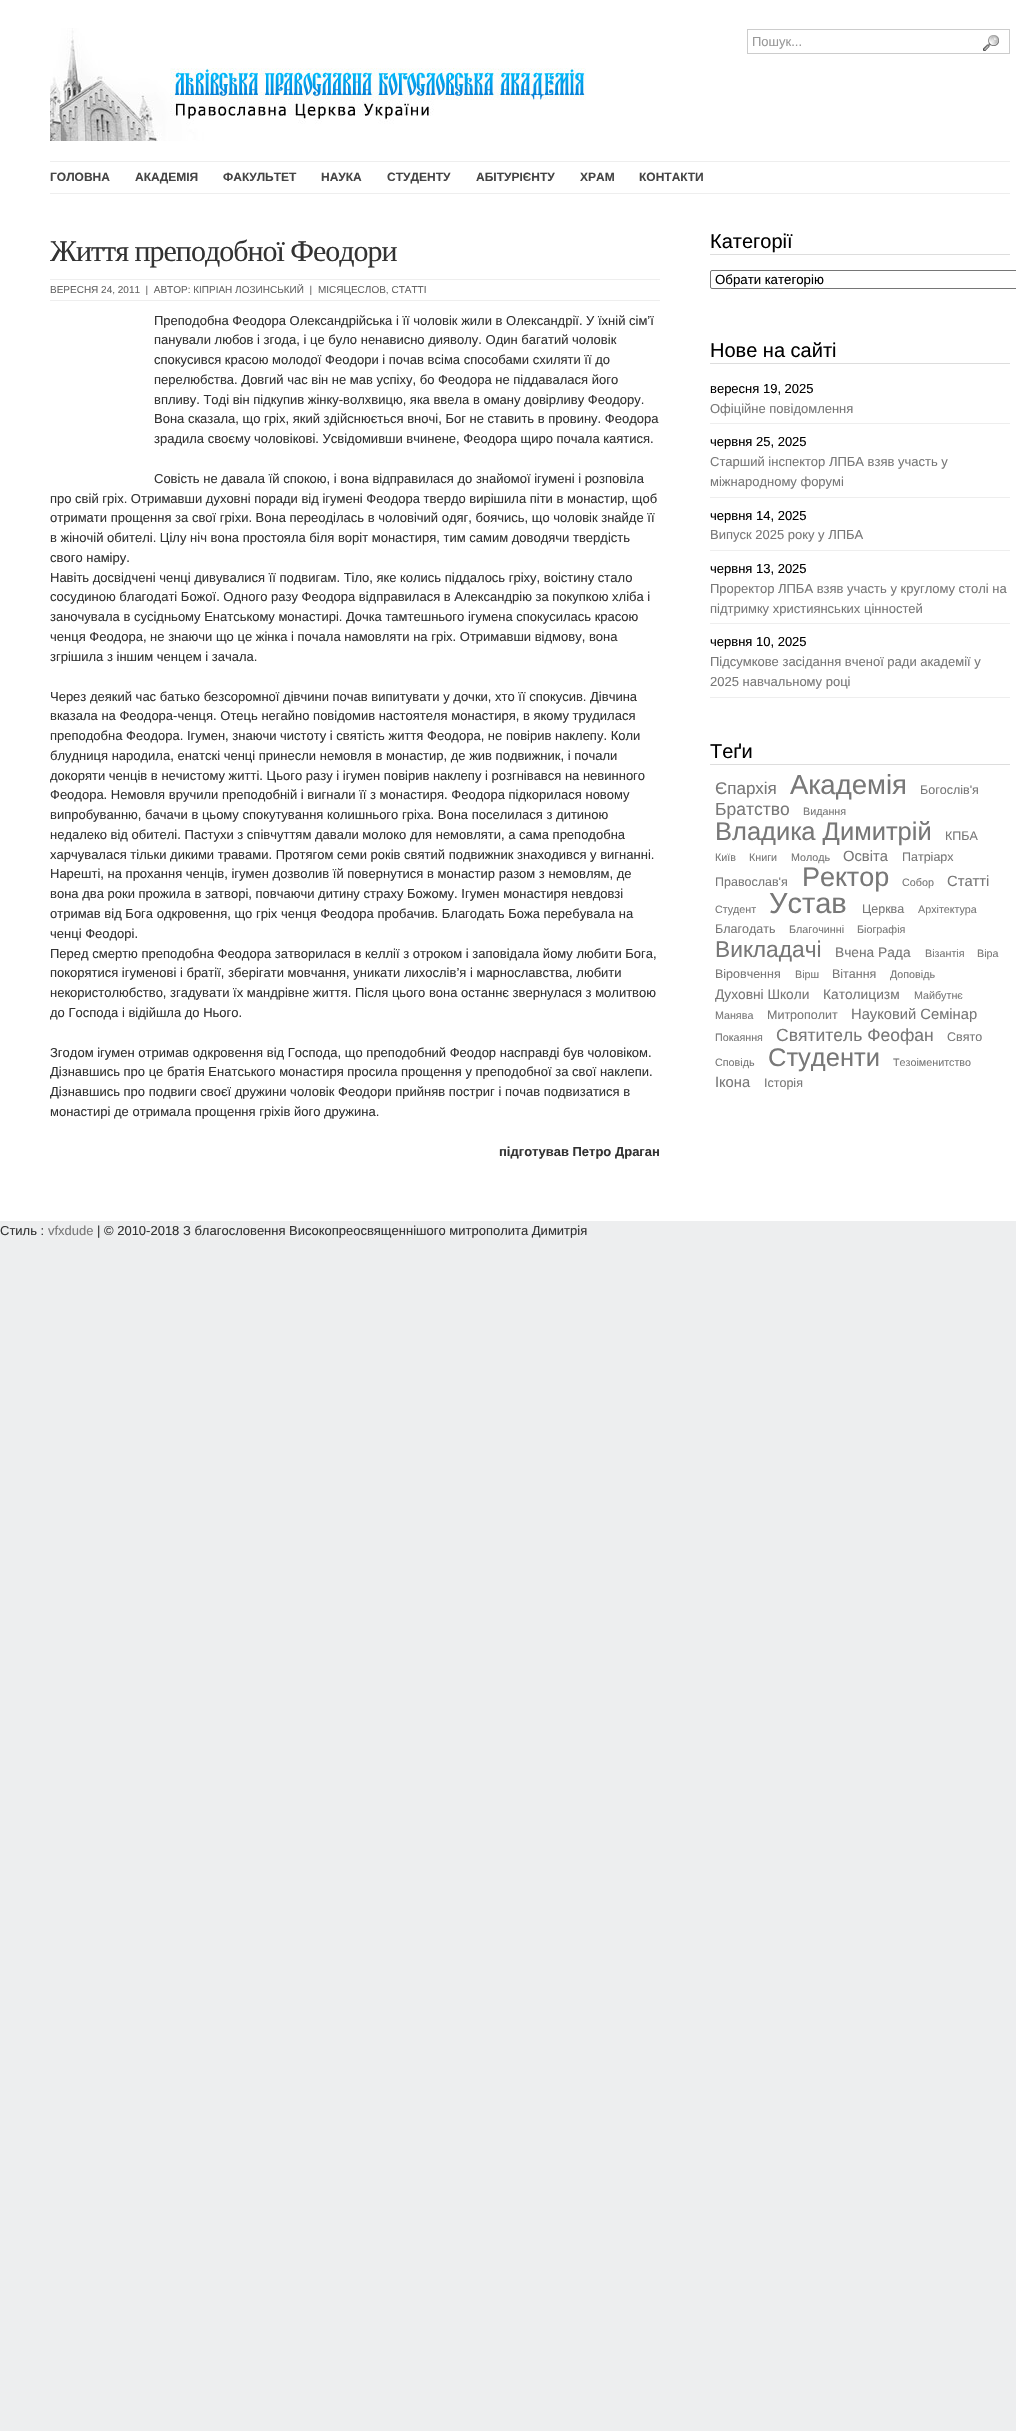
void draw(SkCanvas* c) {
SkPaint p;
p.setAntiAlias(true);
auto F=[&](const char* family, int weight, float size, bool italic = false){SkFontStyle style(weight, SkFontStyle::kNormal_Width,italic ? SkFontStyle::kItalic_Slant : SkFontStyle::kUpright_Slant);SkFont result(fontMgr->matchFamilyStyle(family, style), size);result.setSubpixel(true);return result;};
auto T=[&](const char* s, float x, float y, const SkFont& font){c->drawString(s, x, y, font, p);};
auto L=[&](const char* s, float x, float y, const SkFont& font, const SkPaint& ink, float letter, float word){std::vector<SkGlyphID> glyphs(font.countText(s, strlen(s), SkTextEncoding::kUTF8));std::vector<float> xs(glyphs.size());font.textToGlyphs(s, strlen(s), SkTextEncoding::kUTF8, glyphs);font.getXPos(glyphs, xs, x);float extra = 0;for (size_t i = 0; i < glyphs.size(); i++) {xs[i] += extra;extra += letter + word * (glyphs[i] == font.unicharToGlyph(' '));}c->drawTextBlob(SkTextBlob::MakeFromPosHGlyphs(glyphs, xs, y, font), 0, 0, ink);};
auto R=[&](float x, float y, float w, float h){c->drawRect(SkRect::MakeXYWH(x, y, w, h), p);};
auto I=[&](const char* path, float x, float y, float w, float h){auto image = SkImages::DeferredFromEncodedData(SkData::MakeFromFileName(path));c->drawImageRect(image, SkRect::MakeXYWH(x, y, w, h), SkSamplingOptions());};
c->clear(0xffedeeef);
p.setColor(0xffffffff);
R(0,0,1016,1221);
I("1.png",50,28,536,113);
p.setStroke(true);
p.setStrokeWidth(1);
p.setColor(0xffcccccc);
c->drawRect(SkRect::MakeXYWH(747.5,29.5,262,24),p);
auto f1 = F("Liberation Sans",400,13);
p.setStroke(false);
p.setColor(0xff999999);
T("Пошук...",752,46,f1);
I("2.png",983,35,16,16);
p.setColor(0xffeeeeee);
R(50,161,960,1);
R(50,193,960,1);
auto f2 = F("Liberation Sans",700,12);
p.setColor(0xff454545);
T("ГОЛОВНА",50,181,f2);
T("АКАДЕМІЯ",135,181,f2);
T("ФАКУЛЬТЕТ",223,181,f2);
T("НАУКА",321,181,f2);
T("СТУДЕНТУ",387,181,f2);
T("АБІТУРІЄНТУ",476,181,f2);
T("ХРАМ",580,181,f2);
T("КОНТАКТИ",639,181,f2);
auto f3 = F("Liberation Serif",400,30);
p.setColor(0xff333333);
L("Життя преподобної Феодори",50,261,f3,p,-1,0);
p.setColor(0xffeeeeee);
R(50,279,610,1);
R(50,300,610,1);
auto f4 = F("Liberation Sans",400,10);
p.setColor(0xff666666);
T("ВЕРЕСНЯ 24, 2011  |  АВТОР: КІПРІАН ЛОЗИНСЬКИЙ  |",50,293,f4);
T("МІСЯЦЕСЛОВ, СТАТТІ",318,293,f4);
p.setColor(0xff333333);
T("Преподобна Феодора Олександрійська і її чоловік жили в Олександрії. У їхній сім’ї",154,325,f1);
T("панували любов і згода, і це було ненависно дияволу. Один багатий чоловік",154,344,f1);
T("спокусився красою молодої Феодори і почав всіма способами схиляти її до",154,364,f1);
T("перелюбства. Довгий час він не мав успіху, бо Феодора не піддавалася його",154,384,f1);
T("впливу. Тоді він підкупив жінку-волхвицю, яка ввела в оману довірливу Феодору.",154,404,f1);
T("Вона сказала, що гріх, який здійснюється вночі, Бог не ставить в провину. Феодора",154,423,f1);
T("зрадила своєму чоловікові. Усвідомивши вчинене, Феодора щиро почала каятися.",154,443,f1);
T("Совість не давала їй спокою, і вона відправилася до знайомої ігумені і розповіла",154,483,f1);
T("про свій гріх. Отримавши духовні поради від ігумені Феодора твердо вирішила піти в монастир, щоб",50,503,f1);
T("отримати прощення за свої гріхи. Вона переоділась в чоловічий одяг, боячись, що чоловік знайде її",50,522,f1);
T("в жіночій обителі. Цілу ніч вона простояла біля воріт монастиря, тим самим доводячи твердість",50,542,f1);
T("свого наміру.",50,562,f1);
T("Навіть досвідчені ченці дивувалися її подвигам. Тіло, яке колись піддалось гріху, воістину стало",50,582,f1);
T("сосудиною благодаті Божої. Одного разу Феодора відправилася в Александрію за покупкою хліба і",50,601,f1);
T("заночувала в сусідньому Енатському монастирі. Дочка тамтешнього ігумена спокусилась красою",50,621,f1);
T("ченця Феодора, не знаючи що це жінка і почала намовляти на гріх. Отримавши відмову, вона",50,641,f1);
T("згрішила з іншим ченцем і зачала.",50,661,f1);
T("Через деякий час батько безсоромної дівчини почав випитувати у дочки, хто її спокусив. Дівчина",50,701,f1);
T("вказала на Феодора-ченця. Отець негайно повідомив настоятеля монастиря, в якому трудилася",50,720,f1);
T("преподобна Феодора. Ігумен, знаючи чистоту і святість життя Феодора, не повірив наклепу. Коли",50,740,f1);
T("блудниця народила, енатскі ченці принесли немовля в монастир, де жив подвижник, і почали",50,760,f1);
T("докоряти ченців в нечистому житті. Цього разу і ігумен повірив наклепу і розгнівався на невинного",50,780,f1);
T("Феодора. Немовля вручили преподобній і вигнали її з монастиря. Феодора підкорилася новому",50,799,f1);
T("випробуванню, бачачи в цьому спокутування колишнього гріха. Вона поселилася з дитиною",50,819,f1);
T("недалеко від обителі. Пастухи з співчуттям давали молоко для немовляти, а сама преподобна",50,839,f1);
T("харчувалася тільки дикими травами. Протягом семи років святий подвижник знаходився у вигнанні.",50,859,f1);
T("Нарешті, на прохання ченців, ігумен дозволив їй повернутися в монастир разом з немовлям, де",50,878,f1);
T("вона два роки прожила в затворі, повчаючи дитину страху Божому. Ігумен монастиря невдовзі",50,898,f1);
T("отримав від Бога одкровення, що гріх ченця Феодора пробачив. Благодать Божа перебувала на",50,918,f1);
T("ченці Феодорі.",50,938,f1);
T("Перед смертю преподобна Феодора затворилася в келлії з отроком і заповідала йому любити Бога,",50,958,f1);
T("покорятися ігуменові і братії, зберігати мовчання, уникати лихослів’я і марнославства, любити",50,977,f1);
T("некористолюбство, згадувати їх мандрівне життя. Після цього вона останнє звернулася з молитвою",50,997,f1);
T("до Господа і відійшла до Нього.",50,1017,f1);
T("Згодом ігумен отримав одкровення від Господа, що преподобний Феодор насправді був чоловіком.",50,1057,f1);
T("Дізнавшись про це братія Енатського монастиря просила прощення у преподобної за свої наклепи.",50,1076,f1);
T("Дізнавшись про подвиги своєї дружини чоловік Феодори прийняв постриг і почав подвизатися в",50,1096,f1);
T("монастирі де отримала прощення гріхів його дружина.",50,1116,f1);
auto f5 = F("Liberation Sans",700,13);
T("підготував Петро Драган",499,1156,f5);
p.setColor(0xffdddddd);
R(710,254,300,1);
auto f6 = F("Liberation Sans",400,20);
p.setColor(0xff000000);
T("Категорії",710,248,f6);
p.setStroke(true);
p.setColor(0xff767676);
c->drawRoundRect(SkRect::MakeXYWH(710.5,270.5,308,18),1.5,1.5,p);
auto f7 = F("Liberation Sans",400,13.25);
p.setStroke(false);
p.setColor(0xff000000);
T("Обрати категорію",715,284,f7);
p.setColor(0xffdddddd);
R(710,363,300,1);
p.setColor(0xff000000);
T("Нове на сайті",710,357,f6);
p.setColor(0xffeeeeee);
R(710,423,300,1);
p.setColor(0xff000000);
T("вересня 19, 2025",710,393,f1);
p.setColor(0xff787878);
T("Офіційне повідомлення",710,413,f1);
p.setColor(0xffeeeeee);
R(710,497,300,1);
p.setColor(0xff000000);
T("червня 25, 2025",710,446,f1);
p.setColor(0xff787878);
T("Старший інспектор ЛПБА взяв участь у",710,466,f1);
T("міжнародному форумі",710,486,f1);
p.setColor(0xffeeeeee);
R(710,550,300,1);
p.setColor(0xff000000);
T("червня 14, 2025",710,520,f1);
p.setColor(0xff787878);
T("Випуск 2025 року у ЛПБА",710,539,f1);
p.setColor(0xffeeeeee);
R(710,623,300,1);
p.setColor(0xff000000);
T("червня 13, 2025",710,573,f1);
p.setColor(0xff787878);
T("Проректор ЛПБА взяв участь у круглому столі на",710,593,f1);
T("підтримку християнських цінностей",710,613,f1);
p.setColor(0xffeeeeee);
R(710,697,300,1);
p.setColor(0xff000000);
T("червня 10, 2025",710,646,f1);
p.setColor(0xff787878);
T("Підсумкове засідання вченої ради академії у",710,666,f1);
T("2025 навчальному році",710,686,f1);
p.setColor(0xffdddddd);
R(710,764,300,1);
p.setColor(0xff000000);
T("Теґи",710,758,f6);
auto f8 = F("Liberation Sans",400,17);
p.setColor(0xff787878);
T("Єпархія",715,794,f8);
auto f9 = F("Liberation Sans",400,27.5);
T("Академія",790,794,f9);
auto f10 = F("Liberation Sans",400,12.5);
T("Богослів'я",920,794,f10);
auto f11 = F("Liberation Sans",400,17.5);
T("Братство",715,815,f11);
auto f12 = F("Liberation Sans",400,10.75);
T("Видання",803,815,f12);
auto f13 = F("Liberation Sans",400,25.5);
T("Владика Димитрій",715,840,f13);
T("КПБА",945,840,f10);
T("Київ",715,861,f12);
T("Книги",749,861,f12);
T("Молодь",791,861,f12);
auto f14 = F("Liberation Sans",400,14.75);
T("Освіта",843,861,f14);
T("Патріарх",902,861,f10);
T("Православ'я",715,886,f10);
auto f15 = F("Liberation Sans",400,27);
T("Ректор",802,886,f15);
T("Собор",902,886,f12);
T("Статті",947,886,f14);
T("Студент",715,913,f12);
auto f16 = F("Liberation Sans",400,29);
T("Устав",769,913,f16);
T("Церква",862,913,f10);
T("Архітектура",918,913,f12);
T("Благодать",715,933,f10);
T("Благочинні",789,933,f12);
T("Біографія",857,933,f12);
auto f17 = F("Liberation Sans",400,22.75);
T("Викладачі",715,957,f17);
auto f18 = F("Liberation Sans",400,13.75);
T("Вчена Рада",835,957,f18);
T("Візантія",925,957,f12);
T("Віра",977,957,f12);
T("Віровчення",715,978,f10);
T("Вірш",795,978,f12);
T("Вітання",832,978,f10);
T("Доповідь",890,978,f12);
T("Духовні Школи",715,999,f18);
T("Католицизм",823,999,f18);
T("Майбутнє",914,999,f12);
T("Манява",715,1019,f12);
T("Митрополит",767,1019,f10);
T("Науковий Семінар",851,1019,f14);
T("Покаяння",715,1041,f12);
T("Святитель Феофан",776,1041,f11);
T("Свято",947,1041,f10);
T("Сповідь",715,1066,f12);
T("Студенти",768,1066,f13);
T("Тезоіменитство",893,1066,f12);
T("Ікона",715,1087,f14);
T("Історія",764,1087,f10);
p.setColor(0xff333333);
T("Стиль :",0,1235,f1);
p.setColor(0xff787878);
T("vfxdude",48,1235,f1);
p.setColor(0xff333333);
T("| © 2010-2018 З благословення Високопреосвященнішого митрополита Димитрія",97,1235,f1);
}
